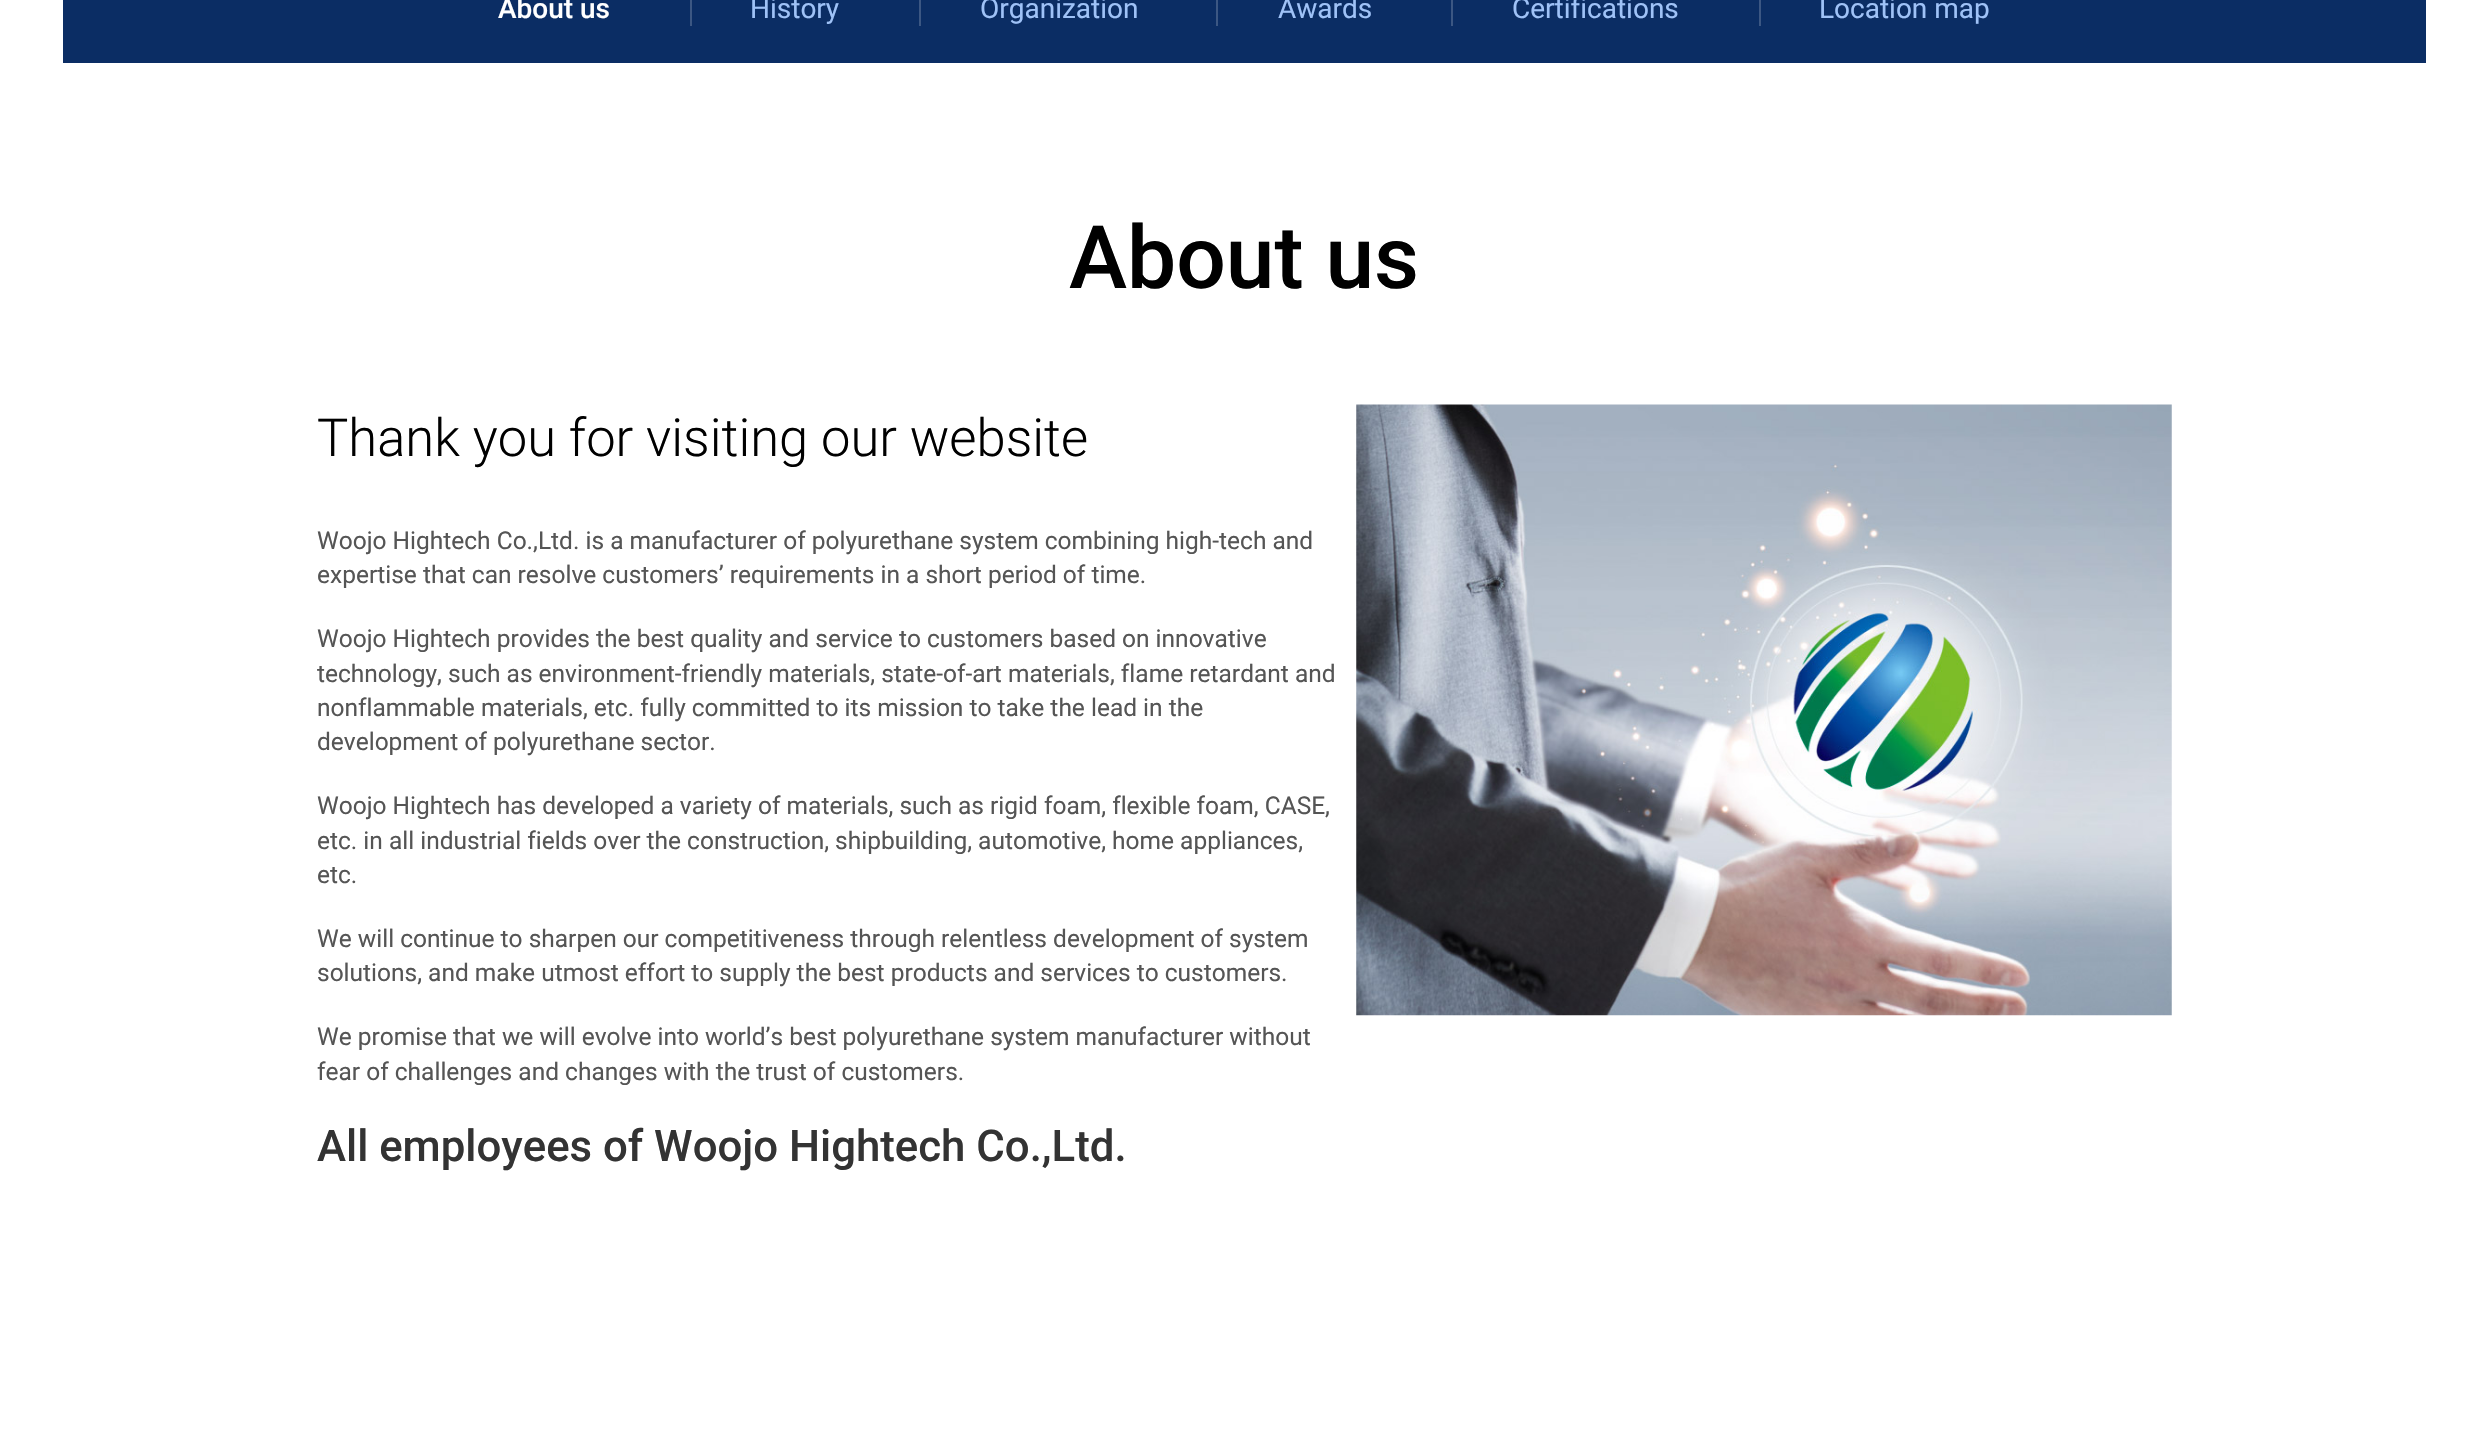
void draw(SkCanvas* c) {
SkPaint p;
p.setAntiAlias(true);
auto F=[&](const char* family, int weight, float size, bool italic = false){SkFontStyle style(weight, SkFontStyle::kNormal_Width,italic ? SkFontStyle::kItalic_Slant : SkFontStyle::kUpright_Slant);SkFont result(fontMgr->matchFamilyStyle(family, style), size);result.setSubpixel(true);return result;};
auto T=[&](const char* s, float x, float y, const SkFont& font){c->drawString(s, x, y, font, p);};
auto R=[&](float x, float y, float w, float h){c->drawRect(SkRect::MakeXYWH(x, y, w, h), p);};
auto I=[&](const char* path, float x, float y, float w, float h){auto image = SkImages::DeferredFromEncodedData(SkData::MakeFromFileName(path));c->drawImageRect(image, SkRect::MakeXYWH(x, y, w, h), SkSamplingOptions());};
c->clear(0xffffffff);
p.setColor(0xff0b2d64);
R(63,0,2363,63);
auto f1 = F("Roboto",500,28);
p.setColor(0xffffffff);
T("About us",498,18,f1);
p.setColor(0xff3c5783);
R(690,0,2,26);
auto f2 = F("Roboto",400,28);
p.setColor(0xff9fc2f7);
T("History",750,18,f2);
p.setColor(0xff3c5783);
R(919,0,2,26);
p.setColor(0xff9fc2f7);
T("Organization",980,18,f2);
p.setColor(0xff3c5783);
R(1216,0,2,26);
p.setColor(0xff9fc2f7);
T("Awards",1278,18,f2);
p.setColor(0xff3c5783);
R(1451,0,2,26);
p.setColor(0xff9fc2f7);
T("Certifications",1512,18,f2);
p.setColor(0xff3c5783);
R(1759,0,2,26);
p.setColor(0xff9fc2f7);
T("Location map",1819,18,f2);
auto f3 = F("Roboto",500,87.5);
p.setColor(0xff000000);
T("About us",1069,288,f3);
auto f4 = F("Roboto",300,52.5);
T("Thank you for visiting our website",317,456,f4);
auto f5 = F("Roboto",400,24.5);
p.setColor(0xff555555);
T("Woojo Hightech Co.,Ltd. is a manufacturer of polyurethane system combining high-tech and",317,549,f5);
T("expertise that can resolve customers’ requirements in a short period of time.",317,583,f5);
T("Woojo Hightech provides the best quality and service to customers based on innovative",317,647,f5);
T("technology, such as environment-friendly materials, state-of-art materials, flame retardant and",317,682,f5);
T("nonflammable materials, etc. fully committed to its mission to take the lead in the",317,716,f5);
T("development of polyurethane sector.",317,750,f5);
T("Woojo Hightech has developed a variety of materials, such as rigid foam, flexible foam, CASE,",317,814,f5);
T("etc. in all industrial fields over the construction, shipbuilding, automotive, home appliances,",317,849,f5);
T("etc.",317,883,f5);
T("We will continue to sharpen our competitiveness through relentless development of system",317,947,f5);
T("solutions, and make utmost effort to supply the best products and services to customers.",317,981,f5);
T("We promise that we will evolve into world’s best polyurethane system manufacturer without",317,1045,f5);
T("fear of challenges and changes with the trust of customers.",317,1080,f5);
auto f6 = F("Roboto",500,43.75);
p.setColor(0xff333333);
T("All employees of Woojo Hightech Co.,Ltd.",317,1161,f6);
I("1.png",1356,404,816,612);
}
